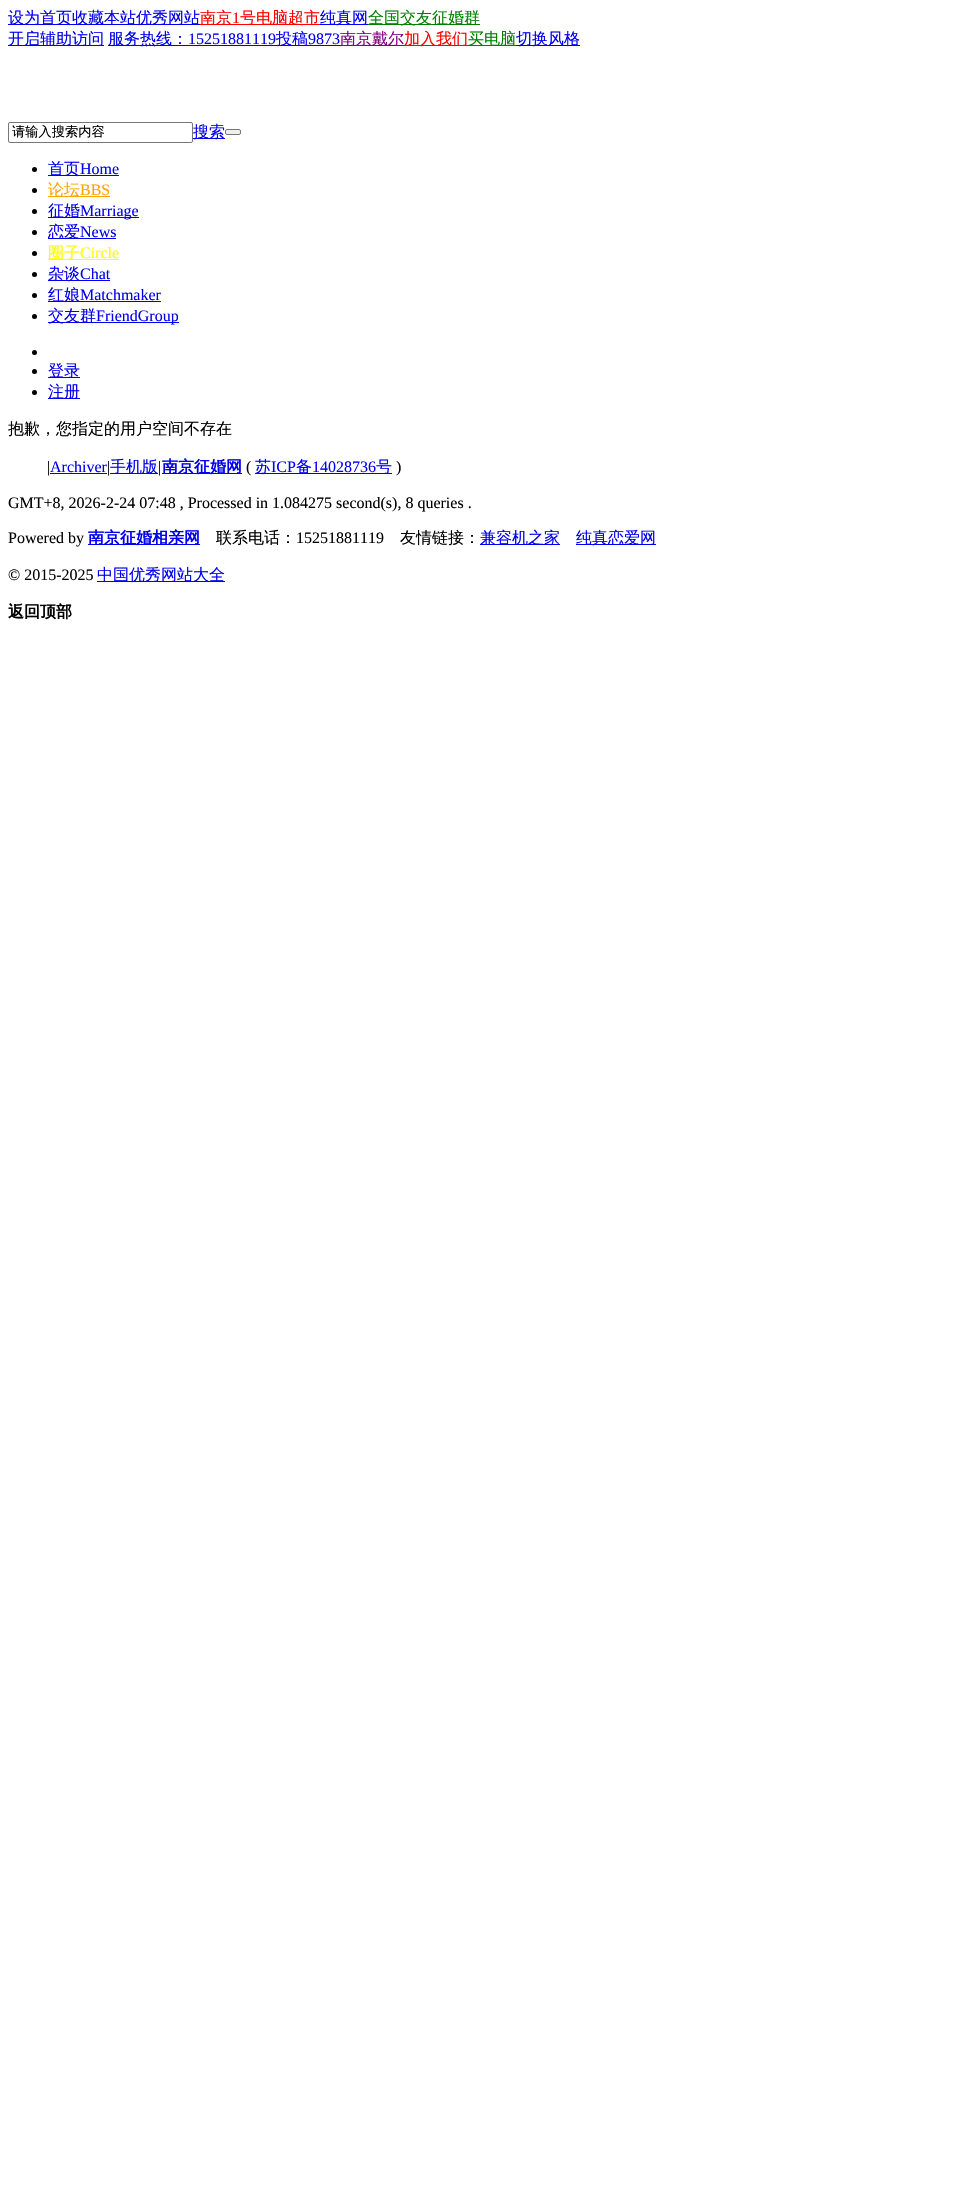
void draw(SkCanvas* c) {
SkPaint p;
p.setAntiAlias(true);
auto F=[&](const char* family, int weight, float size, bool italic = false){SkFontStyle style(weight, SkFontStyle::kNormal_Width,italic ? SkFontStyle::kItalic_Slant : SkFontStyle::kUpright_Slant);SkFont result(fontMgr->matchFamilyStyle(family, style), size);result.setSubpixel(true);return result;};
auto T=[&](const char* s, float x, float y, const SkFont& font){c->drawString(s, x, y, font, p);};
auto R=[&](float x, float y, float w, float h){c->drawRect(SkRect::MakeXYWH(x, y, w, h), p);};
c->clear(0xffffffff);
p.setColor(0xff0000ee);
R(8,24,192,1);
auto f1 = F("WenQuanYi Zen Hei",500,16);
T("设为首页收藏本站优秀网站",8,23,f1);
p.setColor(0xffff0000);
R(200,24,120,1);
T("南京",200,23,f1);
auto f2 = F("Liberation Serif",400,16);
T("1",232,23,f2);
T("号电脑超市",240,23,f1);
p.setColor(0xff0000ff);
R(320,24,48,1);
T("纯真网",320,23,f1);
p.setColor(0xff008000);
R(368,24,112,1);
T("全国交友征婚群",368,23,f1);
p.setColor(0xff0000ee);
R(8,45,96,1);
T("开启辅助访问",8,44,f1);
R(108,45,168,1);
T("服务热线：",108,44,f1);
T("15251881119",188,44,f2);
p.setColor(0xff0000ff);
R(276,45,32,1);
T("投稿",276,44,f1);
p.setColor(0xff0000ee);
T("9873",308,44,f2);
R(308,45,32,1);
p.setColor(0xff800080);
R(340,45,64,1);
T("南京戴尔",340,44,f1);
p.setColor(0xffff0000);
R(404,45,64,1);
T("加入我们",404,44,f1);
p.setColor(0xff008000);
R(468,45,48,1);
T("买电脑",468,44,f1);
p.setColor(0xff0000ee);
R(516,45,64,1);
T("切换风格",516,44,f1);
p.setStroke(true);
p.setStrokeWidth(1);
p.setColor(0xff767676);
c->drawRoundRect(SkRect::MakeXYWH(8.5,122.5,184,20),1.5,1.5,p);
auto f3 = F("WenQuanYi Zen Hei",500,13.25);
p.setStroke(false);
p.setColor(0xff000000);
T("请输入搜索内容",12,136,f3);
p.setColor(0xff0000ee);
R(193,138,32,1);
T("搜索",193,137,f1);
p.setColor(0xffefefef);
c->drawRoundRect(SkRect::MakeXYWH(225.5,129.5,15,5),1.5,1.5,p);
p.setStroke(true);
p.setColor(0xff767676);
c->drawRoundRect(SkRect::MakeXYWH(225.5,129.5,15,5),1.5,1.5,p);
p.setStroke(false);
p.setColor(0xff000000);
c->drawCircle(34.5,169.5,2.5,p);
p.setColor(0xff0000ee);
R(48,175,71,1);
T("首页",48,174,f1);
T("Home",80,174,f2);
p.setColor(0xff000000);
c->drawCircle(34.5,190.5,2.5,p);
p.setColor(0xffffa500);
R(48,196,62,1);
T("论坛",48,195,f1);
T("BBS",80,195,f2);
p.setColor(0xff000000);
c->drawCircle(34.5,211.5,2.5,p);
p.setColor(0xff0000ee);
R(48,217,91,1);
T("征婚",48,216,f1);
T("Marriage",80,216,f2);
p.setColor(0xff000000);
c->drawCircle(34.5,232.5,2.5,p);
p.setColor(0xff0000ee);
R(48,238,68,1);
T("恋爱",48,237,f1);
T("News",80,237,f2);
p.setColor(0xff000000);
c->drawCircle(34.5,253.5,2.5,p);
p.setColor(0xffffff00);
R(48,259,71,1);
T("圈子",48,258,f1);
T("Circle",80,258,f2);
p.setColor(0xff000000);
c->drawCircle(34.5,274.5,2.5,p);
p.setColor(0xff0000ee);
R(48,280,62,1);
T("杂谈",48,279,f1);
T("Chat",80,279,f2);
p.setColor(0xff000000);
c->drawCircle(34.5,295.5,2.5,p);
p.setColor(0xff0000ee);
R(48,301,113,1);
T("红娘",48,300,f1);
T("Matchmaker",80,300,f2);
p.setColor(0xff000000);
c->drawCircle(34.5,316.5,2.5,p);
p.setColor(0xff0000ee);
R(48,322,131,1);
T("交友群",48,321,f1);
T("FriendGroup",96,321,f2);
p.setColor(0xff000000);
c->drawCircle(34.5,352.5,2.5,p);
c->drawCircle(34.5,371.5,2.5,p);
p.setColor(0xff0000ee);
R(48,377,32,1);
T("登录",48,376,f1);
p.setColor(0xff000000);
c->drawCircle(34.5,392.5,2.5,p);
p.setColor(0xff0000ee);
R(48,398,32,1);
T("注册",48,397,f1);
p.setColor(0xff000000);
T("抱歉，您指定的用户空间不存在",8,434,f1);
T("|",47,472,f2);
p.setColor(0xff0000ee);
T("Archiver",50,472,f2);
R(50,473,57,1);
p.setColor(0xff000000);
T("|",107,472,f2);
p.setColor(0xff0000ee);
R(110,473,48,1);
T("手机版",110,472,f1);
p.setColor(0xff000000);
T("|",158,472,f2);
p.setColor(0xff0000ee);
R(162,473,80,1);
auto f4 = F("WenQuanYi Zen Hei",700,16);
T("南京征婚网",162,472,f4);
p.setColor(0xff000000);
T("(",246,472,f2);
p.setColor(0xff0000ee);
R(255,473,137,1);
T("苏",255,472,f1);
T("ICP",271,472,f2);
T("备",296,472,f1);
T("14028736",312,472,f2);
T("号",376,472,f1);
p.setColor(0xff000000);
T(")",396,472,f2);
T("GMT+8, 2026-2-24 07:48 , Processed in 1.084275 second(s), 8 queries .",8,508,f2);
T("Powered by",8,543,f2);
p.setColor(0xff0000ee);
R(88,544,112,1);
T("南京征婚相亲网",88,543,f4);
p.setColor(0xff000000);
T("联系电话：",216,543,f1);
T("15251881119",296,543,f2);
T("友情链接：",400,543,f1);
p.setColor(0xff0000ee);
R(480,544,80,1);
T("兼容机之家",480,543,f1);
R(576,544,80,1);
T("纯真恋爱网",576,543,f1);
p.setColor(0xff000000);
T("© 2015-2025",8,580,f2);
p.setColor(0xff0000ee);
R(97,581,128,1);
T("中国优秀网站大全",97,580,f1);
p.setColor(0xff000000);
T("返回顶部",8,617,f4);
}
